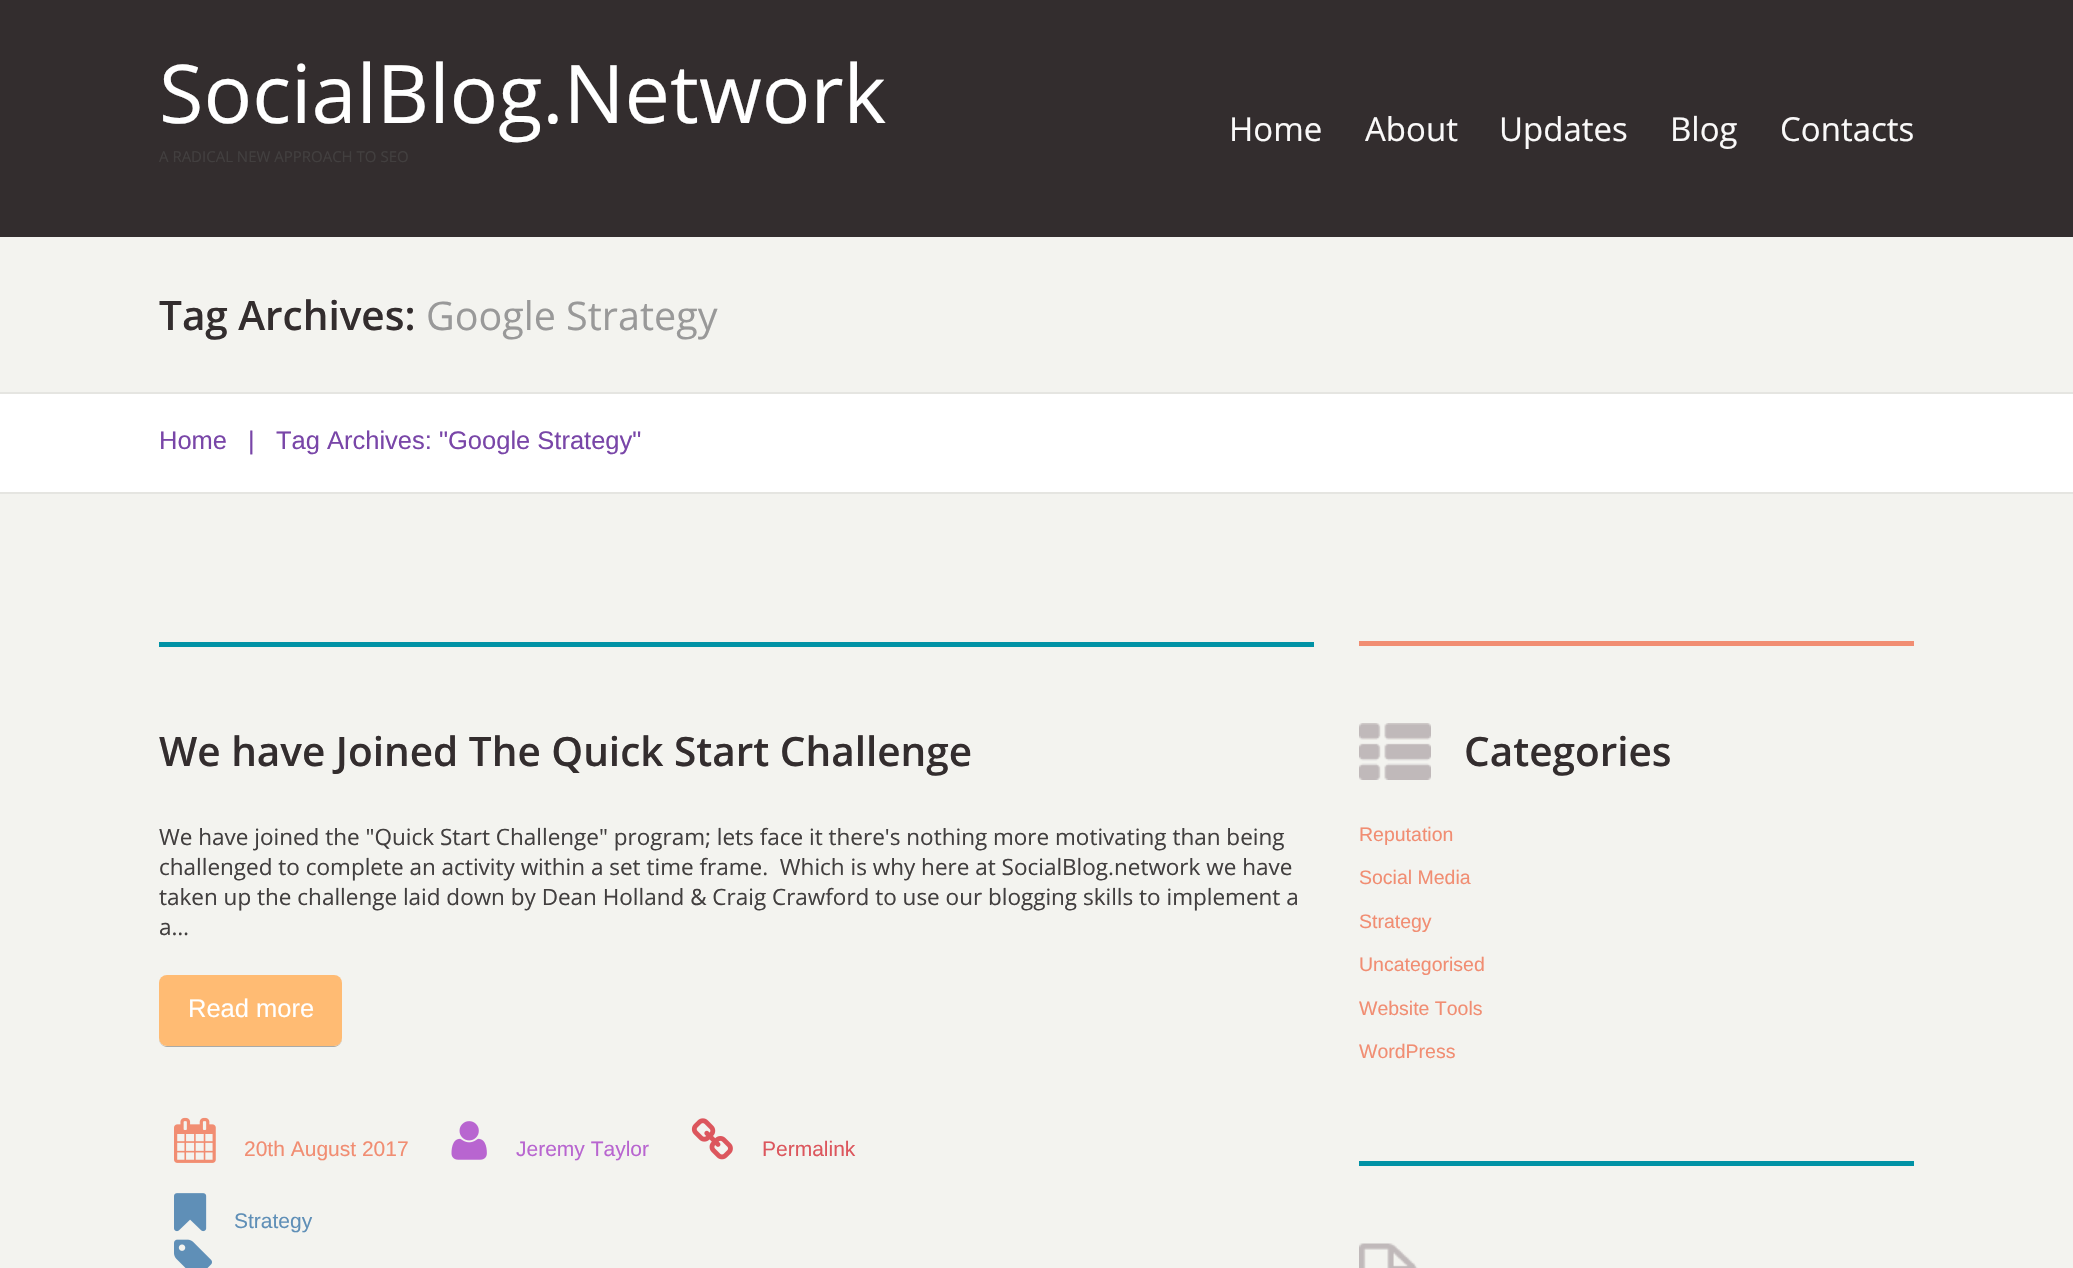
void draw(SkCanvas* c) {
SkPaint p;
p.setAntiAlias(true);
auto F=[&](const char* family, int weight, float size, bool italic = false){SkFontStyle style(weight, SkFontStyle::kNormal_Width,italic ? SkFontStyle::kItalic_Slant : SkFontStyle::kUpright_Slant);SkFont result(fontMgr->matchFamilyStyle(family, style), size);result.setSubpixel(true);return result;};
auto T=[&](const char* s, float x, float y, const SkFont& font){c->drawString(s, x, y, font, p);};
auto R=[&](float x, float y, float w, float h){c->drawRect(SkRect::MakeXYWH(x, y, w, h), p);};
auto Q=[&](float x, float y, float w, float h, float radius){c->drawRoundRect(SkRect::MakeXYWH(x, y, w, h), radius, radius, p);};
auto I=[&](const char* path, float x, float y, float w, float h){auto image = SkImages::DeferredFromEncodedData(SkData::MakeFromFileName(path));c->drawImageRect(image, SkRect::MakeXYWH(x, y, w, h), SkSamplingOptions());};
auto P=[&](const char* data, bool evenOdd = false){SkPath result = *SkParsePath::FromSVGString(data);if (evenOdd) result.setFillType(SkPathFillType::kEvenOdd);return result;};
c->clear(0xff332d2e);
auto f1 = F("Open Sans",400,81);
p.setColor(0xffffffff);
T("SocialBlog.Network",159,123,f1);
auto f2 = F("Open Sans",400,15);
p.setColor(0xff423f3f);
T("A RADICAL NEW APPROACH TO SEO",159,162,f2);
auto f3 = F("Open Sans",400,33);
p.setColor(0xfffaf9f9);
T("Home",1229,141,f3);
T("About",1365,141,f3);
T("Updates",1499,141,f3);
T("Blog",1670,141,f3);
T("Contacts",1780,141,f3);
p.setColor(0xfff3f3ef);
R(0,237,2073,1031);
auto f4 = F("Open Sans",600,40.5);
p.setColor(0xff332d2e);
T("Tag Archives:",159,330,f4);
auto f5 = F("Open Sans",400,39.5);
p.setColor(0xff999999);
T("Google Strategy",426,330,f5);
p.setColor(0xffffffff);
R(0,394,2073,98);
p.setColor(0xffe5e5e1);
R(0,392,2073,2);
R(0,492,2073,2);
auto f6 = F("Liberation Sans",400,25.5);
p.setColor(0xff7946a8);
T("Home",159,449,f6);
T("|",248,449,f6);
T("Tag Archives: \"Google Strategy\"",276,449,f6);
p.setColor(0xff0092a5);
R(159,642,1155,5);
p.setColor(0xff332d2e);
T("We have Joined The Quick Start Challenge",159,766,f4);
auto f7 = F("Open Sans",400,22.5);
p.setColor(0xff423f3f);
T("We have joined the \"Quick Start Challenge\" program; lets face it there's nothing more motivating than being",159,845,f7);
T("challenged to complete an activity within a set time frame.  Which is why here at SocialBlog.network we have",159,875,f7);
T("taken up the challenge laid down by Dean Holland & Craig Crawford to use our blogging skills to implement a",159,905,f7);
T("a…",159,935,f7);
p.setColor(0xffaaaaa7);
c->drawPath(P("M159 1038v1c0 4 4 8 8 8h167c4 0 8-4 8-8v-1c0 4-3 8-8 8h-168c-4 0-7-4-7-8z"),p);
p.setColor(0xffffbb73);
Q(159,975,183,71,8);
p.setColor(0xffffffff);
T("Read more",188,1017,f6);
I("1.png",174,1117,42,46);
auto f8 = F("Liberation Sans",400,21);
p.setColor(0xfff18d72);
T("20th August 2017",244,1156,f8);
I("2.png",451,1121,36,39);
p.setColor(0xffb865d0);
T("Jeremy Taylor",516,1156,f8);
I("3.png",691,1118,42,42);
p.setColor(0xffdc565d);
T("Permalink",762,1156,f8);
I("4.png",174,1193,33,39);
p.setColor(0xff5f8fb7);
T("Strategy",234,1228,f8);
I("5.png",174,1239,38,29);
p.setColor(0xfff18d72);
R(1359,641,555,5);
I("6.png",1359,723,72,57);
p.setColor(0xff332d2e);
T("Categories",1464,766,f4);
auto f9 = F("Liberation Sans",400,19.5);
p.setColor(0xfff18d72);
T("Reputation",1359,841,f9);
T("Social Media",1359,884,f9);
T("Strategy",1359,928,f9);
T("Uncategorised",1359,971,f9);
T("Website Tools",1359,1015,f9);
T("WordPress",1359,1058,f9);
p.setColor(0xff0092a5);
R(1359,1161,555,5);
I("7.png",1359,1243,59,25);
}
